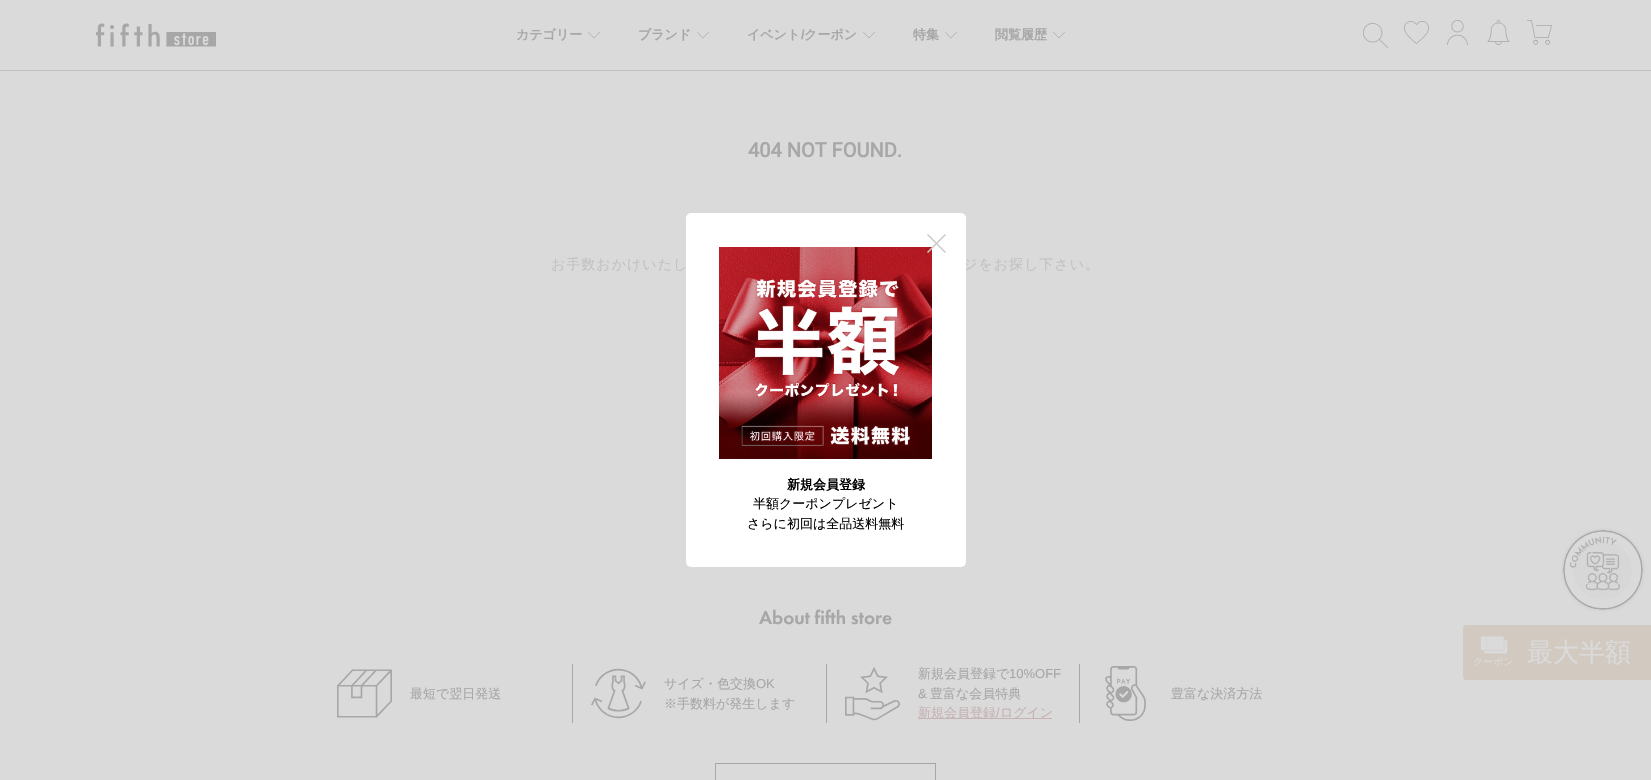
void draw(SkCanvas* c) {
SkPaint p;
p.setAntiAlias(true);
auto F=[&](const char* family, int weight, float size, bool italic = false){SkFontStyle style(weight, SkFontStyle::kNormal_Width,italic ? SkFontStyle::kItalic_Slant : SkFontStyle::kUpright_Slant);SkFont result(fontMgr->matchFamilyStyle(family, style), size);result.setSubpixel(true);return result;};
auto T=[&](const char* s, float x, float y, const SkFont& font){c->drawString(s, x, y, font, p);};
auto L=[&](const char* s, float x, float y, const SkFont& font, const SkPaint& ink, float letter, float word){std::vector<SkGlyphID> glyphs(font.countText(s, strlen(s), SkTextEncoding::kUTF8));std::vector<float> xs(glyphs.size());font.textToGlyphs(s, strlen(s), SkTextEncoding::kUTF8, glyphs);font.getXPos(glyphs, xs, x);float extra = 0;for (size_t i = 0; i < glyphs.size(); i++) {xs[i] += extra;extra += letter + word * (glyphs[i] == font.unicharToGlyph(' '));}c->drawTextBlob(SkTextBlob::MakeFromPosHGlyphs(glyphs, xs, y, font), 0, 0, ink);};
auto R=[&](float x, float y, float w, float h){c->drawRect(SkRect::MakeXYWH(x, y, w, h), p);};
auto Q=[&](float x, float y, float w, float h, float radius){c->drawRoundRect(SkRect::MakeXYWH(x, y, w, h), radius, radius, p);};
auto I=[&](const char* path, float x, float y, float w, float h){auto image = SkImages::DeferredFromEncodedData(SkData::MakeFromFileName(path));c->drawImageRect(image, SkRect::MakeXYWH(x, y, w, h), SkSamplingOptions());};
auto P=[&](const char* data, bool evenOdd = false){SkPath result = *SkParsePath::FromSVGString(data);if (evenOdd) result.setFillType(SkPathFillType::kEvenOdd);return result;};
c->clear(0xffdadada);
I("1.png",96,23,120,24);
auto f1 = F("WenQuanYi Zen Hei",700,13);
p.setColor(0xffa7a7a7);
T("カテゴリー",516,39,f1);
I("2.png",588,31,12,8);
T("ブランド",638,39,f1);
I("2.png",697,31,12,8);
T("イベント クーポン",747,39,f1);
auto f2 = F("Liberation Sans",700,13);
T("/",801,39,f2);
I("2.png",863,31,12,8);
T("特集",913,39,f1);
I("2.png",945,31,12,8);
T("閲覧履歴",995,39,f1);
I("2.png",1053,31,12,8);
I("3.png",1363,23,25,25);
I("4.png",1404,21,25,23);
I("5.png",1447,20,21,25);
I("6.png",1487,20,23,25);
I("7.png",1527,20,25,25);
p.setColor(0xffc2c2c2);
R(0,70,1651,1);
auto f3 = F("Roboto",700,20);
p.setColor(0xffa7a7a7);
T("404 NOT FOUND.",748,157,f3);
auto f4 = F("WenQuanYi Zen Hei",500,14);
p.setColor(0xffc2c2c2);
L("お手数おかけいたし",551,269,f4,p,1,0);
L("ジをお探し下さい。",963,269,f4,p,1,0);
auto f5 = F("Futura PT",500,19.5);
p.setColor(0xffa7a7a7);
T("About fifth store",759,624,f5);
I("8.png",337,669,55,49);
auto f6 = F("WenQuanYi Zen Hei",500,13);
T("最短で翌日発送",410,698,f6);
R(572,664,1,59);
I("9.png",591,668,55,51);
T("サイズ・色交換",664,688,f6);
auto f7 = F("Liberation Sans",400,13);
T("OK",756,688,f7);
T("※手数料が発生します",664,708,f6);
R(826,664,1,59);
I("10.png",845,666,55,55);
T("新規会員登録で",918,678,f6);
T("10%OFF",1009,678,f7);
T("&",918,698,f7);
T("豊富な会員特典",930,698,f6);
p.setColor(0xffc6b3b4);
R(918,718,134,1);
T("新規会員登録 ログイン",918,717,f6);
T("/",996,717,f7);
p.setColor(0xffa7a7a7);
R(1079,664,1,59);
I("11.png",1105,666,41,55);
T("豊富な決済方法",1171,698,f6);
p.setStroke(true);
p.setStrokeWidth(1);
c->drawRect(SkRect::MakeXYWH(715.5,763.5,220,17),p);
p.setStroke(false);
p.setColor(0xffffffff);
Q(686,213,280,354,5);
I("13.png",719,247,213,212);
I("12.png",927,234,19,19);
p.setColor(0xff000000);
T("新規会員登録",787,489,f1);
T("半額クーポンプレゼント",753,508,f6);
T("さらに初回は全品送料無料",747,528,f6);
p.setColor(0x33a7a7a7);
p.setMaskFilter(SkMaskFilter::MakeBlur(kNormal_SkBlurStyle, 1.5));
c->drawRoundRect(SkRect::MakeXYWH(1562,529,82,82),41,41,p);
p.setMaskFilter(nullptr);
I("14.png",1563,530,80,80);
p.setColor(0xffd2cac0);
c->drawPath(P("M1466 625h185v55h-185c-1.5 0-3-1.5-3-3v-49c0-1.5 1.5-3 3-3z"),p);
I("15.png",1480,636,28,18);
auto f8 = F("WenQuanYi Zen Hei",500,10);
p.setColor(0xffdadada);
T("クーポン",1473,665,f8);
auto f9 = F("WenQuanYi Zen Hei",500,26);
T("最大半額",1527,661,f9);
}
